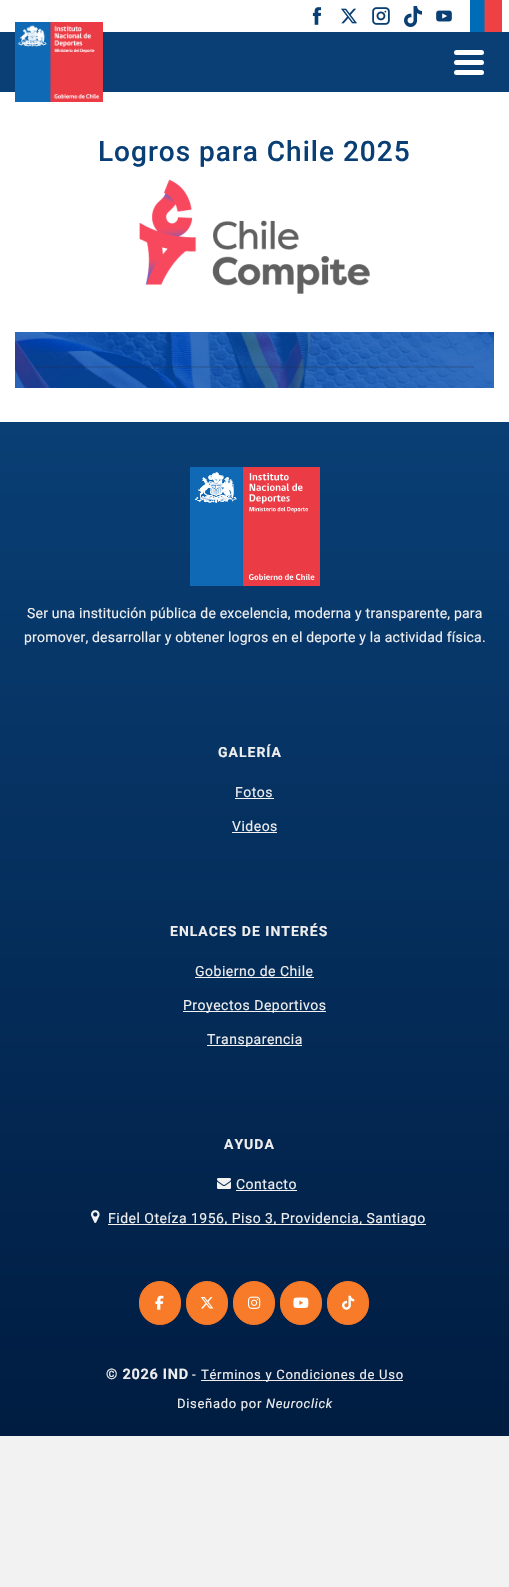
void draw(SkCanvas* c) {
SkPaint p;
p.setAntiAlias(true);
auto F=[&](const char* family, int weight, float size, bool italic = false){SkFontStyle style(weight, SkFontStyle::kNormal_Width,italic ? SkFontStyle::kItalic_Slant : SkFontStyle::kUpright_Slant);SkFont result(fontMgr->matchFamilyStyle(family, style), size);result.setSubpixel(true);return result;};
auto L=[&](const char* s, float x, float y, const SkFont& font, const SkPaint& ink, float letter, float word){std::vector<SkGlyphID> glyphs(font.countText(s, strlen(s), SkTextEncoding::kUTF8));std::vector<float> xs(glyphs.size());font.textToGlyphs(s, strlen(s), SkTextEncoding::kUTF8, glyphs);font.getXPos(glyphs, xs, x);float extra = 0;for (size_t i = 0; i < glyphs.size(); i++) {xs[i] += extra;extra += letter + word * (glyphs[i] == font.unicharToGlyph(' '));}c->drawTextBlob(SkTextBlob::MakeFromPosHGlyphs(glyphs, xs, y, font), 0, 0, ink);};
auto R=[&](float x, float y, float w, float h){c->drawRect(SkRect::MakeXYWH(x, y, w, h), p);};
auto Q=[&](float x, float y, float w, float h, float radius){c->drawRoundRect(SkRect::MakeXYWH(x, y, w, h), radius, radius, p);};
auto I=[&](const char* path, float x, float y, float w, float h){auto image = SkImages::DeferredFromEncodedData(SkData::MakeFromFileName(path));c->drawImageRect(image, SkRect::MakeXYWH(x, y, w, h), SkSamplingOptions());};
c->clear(0xfff2f2f2);
p.setColor(0xff093f75);
R(0,32,509,60);
p.setColor(0xffffffff);
R(0,0,509,32);
I("1.png",312,7,10,18);
I("2.png",341,8,16,16);
I("3.png",372,7,18,18);
I("4.png",404,6,18,21);
I("5.png",436,10,16,12);
I("6.png",470,0,32,32);
R(0,92,509,330);
I("7.png",15,22,88,80);
Q(454,50,30,5,2.5);
Q(454,60,30,5,2.5);
Q(454,70,30,5,2.5);
auto f1 = F("Roboto",500,28);
p.setColor(0xff093f75);
L("Logros para Chile 2025",98,161,f1,p,1,0);
I("8.png",139,179,231,115);
I("9.png",15,332,479,56);
p.setColor(0x26222426);
R(35,366,439,2);
I("10.png",0,422,509,1014);
I("11.png",190,467,130,119);
auto f2 = F("Roboto",400,14);
p.setColor(0xffeeeeee);
L("Ser una institución pública de excelencia, moderna y transparente, para",27,618,f2,p,.2,0);
L("promover, desarrollar y obtener logros en el deporte y la actividad física.",24,642,f2,p,.2,0);
auto f3 = F("Roboto",700,14);
L("GALERÍA",218,757,f3,p,1,0);
L("Fotos",235,797,f2,p,.5,0);
p.setColor(0xfff2f2f2);
R(235,798,39,1);
p.setColor(0xffeeeeee);
L("Videos",232,831,f2,p,.5,0);
p.setColor(0xfff2f2f2);
R(232,832,45,1);
p.setColor(0xffeeeeee);
L("ENLACES DE INTERÉS",170,936,f3,p,1,0);
L("Gobierno de Chile",195,976,f2,p,.5,0);
p.setColor(0xfff2f2f2);
R(195,977,119,1);
R(183,1011,143,1);
p.setColor(0xffeeeeee);
L("Proyectos Deportivos",183,1010,f2,p,.5,0);
p.setColor(0xfff2f2f2);
R(207,1045,95,1);
p.setColor(0xffeeeeee);
L("Transparencia",207,1044,f2,p,.5,0);
L("AYUDA",224,1149,f3,p,1,0);
I("12.png",217,1178,14,11);
L("Contacto",236,1189,f2,p,.5,0);
p.setColor(0xfff2f2f2);
R(236,1190,61,1);
I("13.png",91,1210,9,13);
R(108,1224,318,1);
p.setColor(0xffeeeeee);
L("Fidel Oteíza 1956, Piso 3, Providencia, Santiago",108,1223,f2,p,.5,0);
p.setColor(0xfff77b28);
c->drawRoundRect(SkRect::MakeXYWH(139.5,1281.5,41,43),20.5,20.5,p);
p.setStroke(true);
p.setStrokeWidth(1);
c->drawRoundRect(SkRect::MakeXYWH(139.5,1281.5,41,43),20.5,20.5,p);
I("14.png",155,1295,9,15);
p.setStroke(false);
c->drawRoundRect(SkRect::MakeXYWH(186.5,1281.5,41,43),20.5,20.5,p);
p.setStroke(true);
c->drawRoundRect(SkRect::MakeXYWH(186.5,1281.5,41,43),20.5,20.5,p);
I("15.png",200,1297,14,12);
p.setStroke(false);
c->drawRoundRect(SkRect::MakeXYWH(233.5,1281.5,41,43),20.5,20.5,p);
p.setStroke(true);
c->drawRoundRect(SkRect::MakeXYWH(233.5,1281.5,41,43),20.5,20.5,p);
I("16.png",248,1296,13,13);
p.setStroke(false);
c->drawRoundRect(SkRect::MakeXYWH(280.5,1281.5,41,43),20.5,20.5,p);
p.setStroke(true);
c->drawRoundRect(SkRect::MakeXYWH(280.5,1281.5,41,43),20.5,20.5,p);
I("17.png",293,1297,16,11);
p.setStroke(false);
c->drawRoundRect(SkRect::MakeXYWH(327.5,1281.5,41,43),20.5,20.5,p);
p.setStroke(true);
c->drawRoundRect(SkRect::MakeXYWH(327.5,1281.5,41,43),20.5,20.5,p);
I("18.png",342,1295,13,15);
auto f4 = F("Roboto",700,14.5);
p.setStroke(false);
p.setColor(0xffeeeeee);
L("© 2026 IND",106,1379,f4,p,.7,0);
auto f5 = F("Roboto",400,13);
L("-",192,1379,f5,p,.7,0);
R(201,1380,202,1);
L("Términos y Condiciones de Uso",201,1379,f5,p,.7,0);
L("Diseñado por",177,1408,f5,p,.7,0);
auto f6 = F("Roboto",400,13,true);
L("Neuroclick",266,1408,f6,p,.7,0);
}
